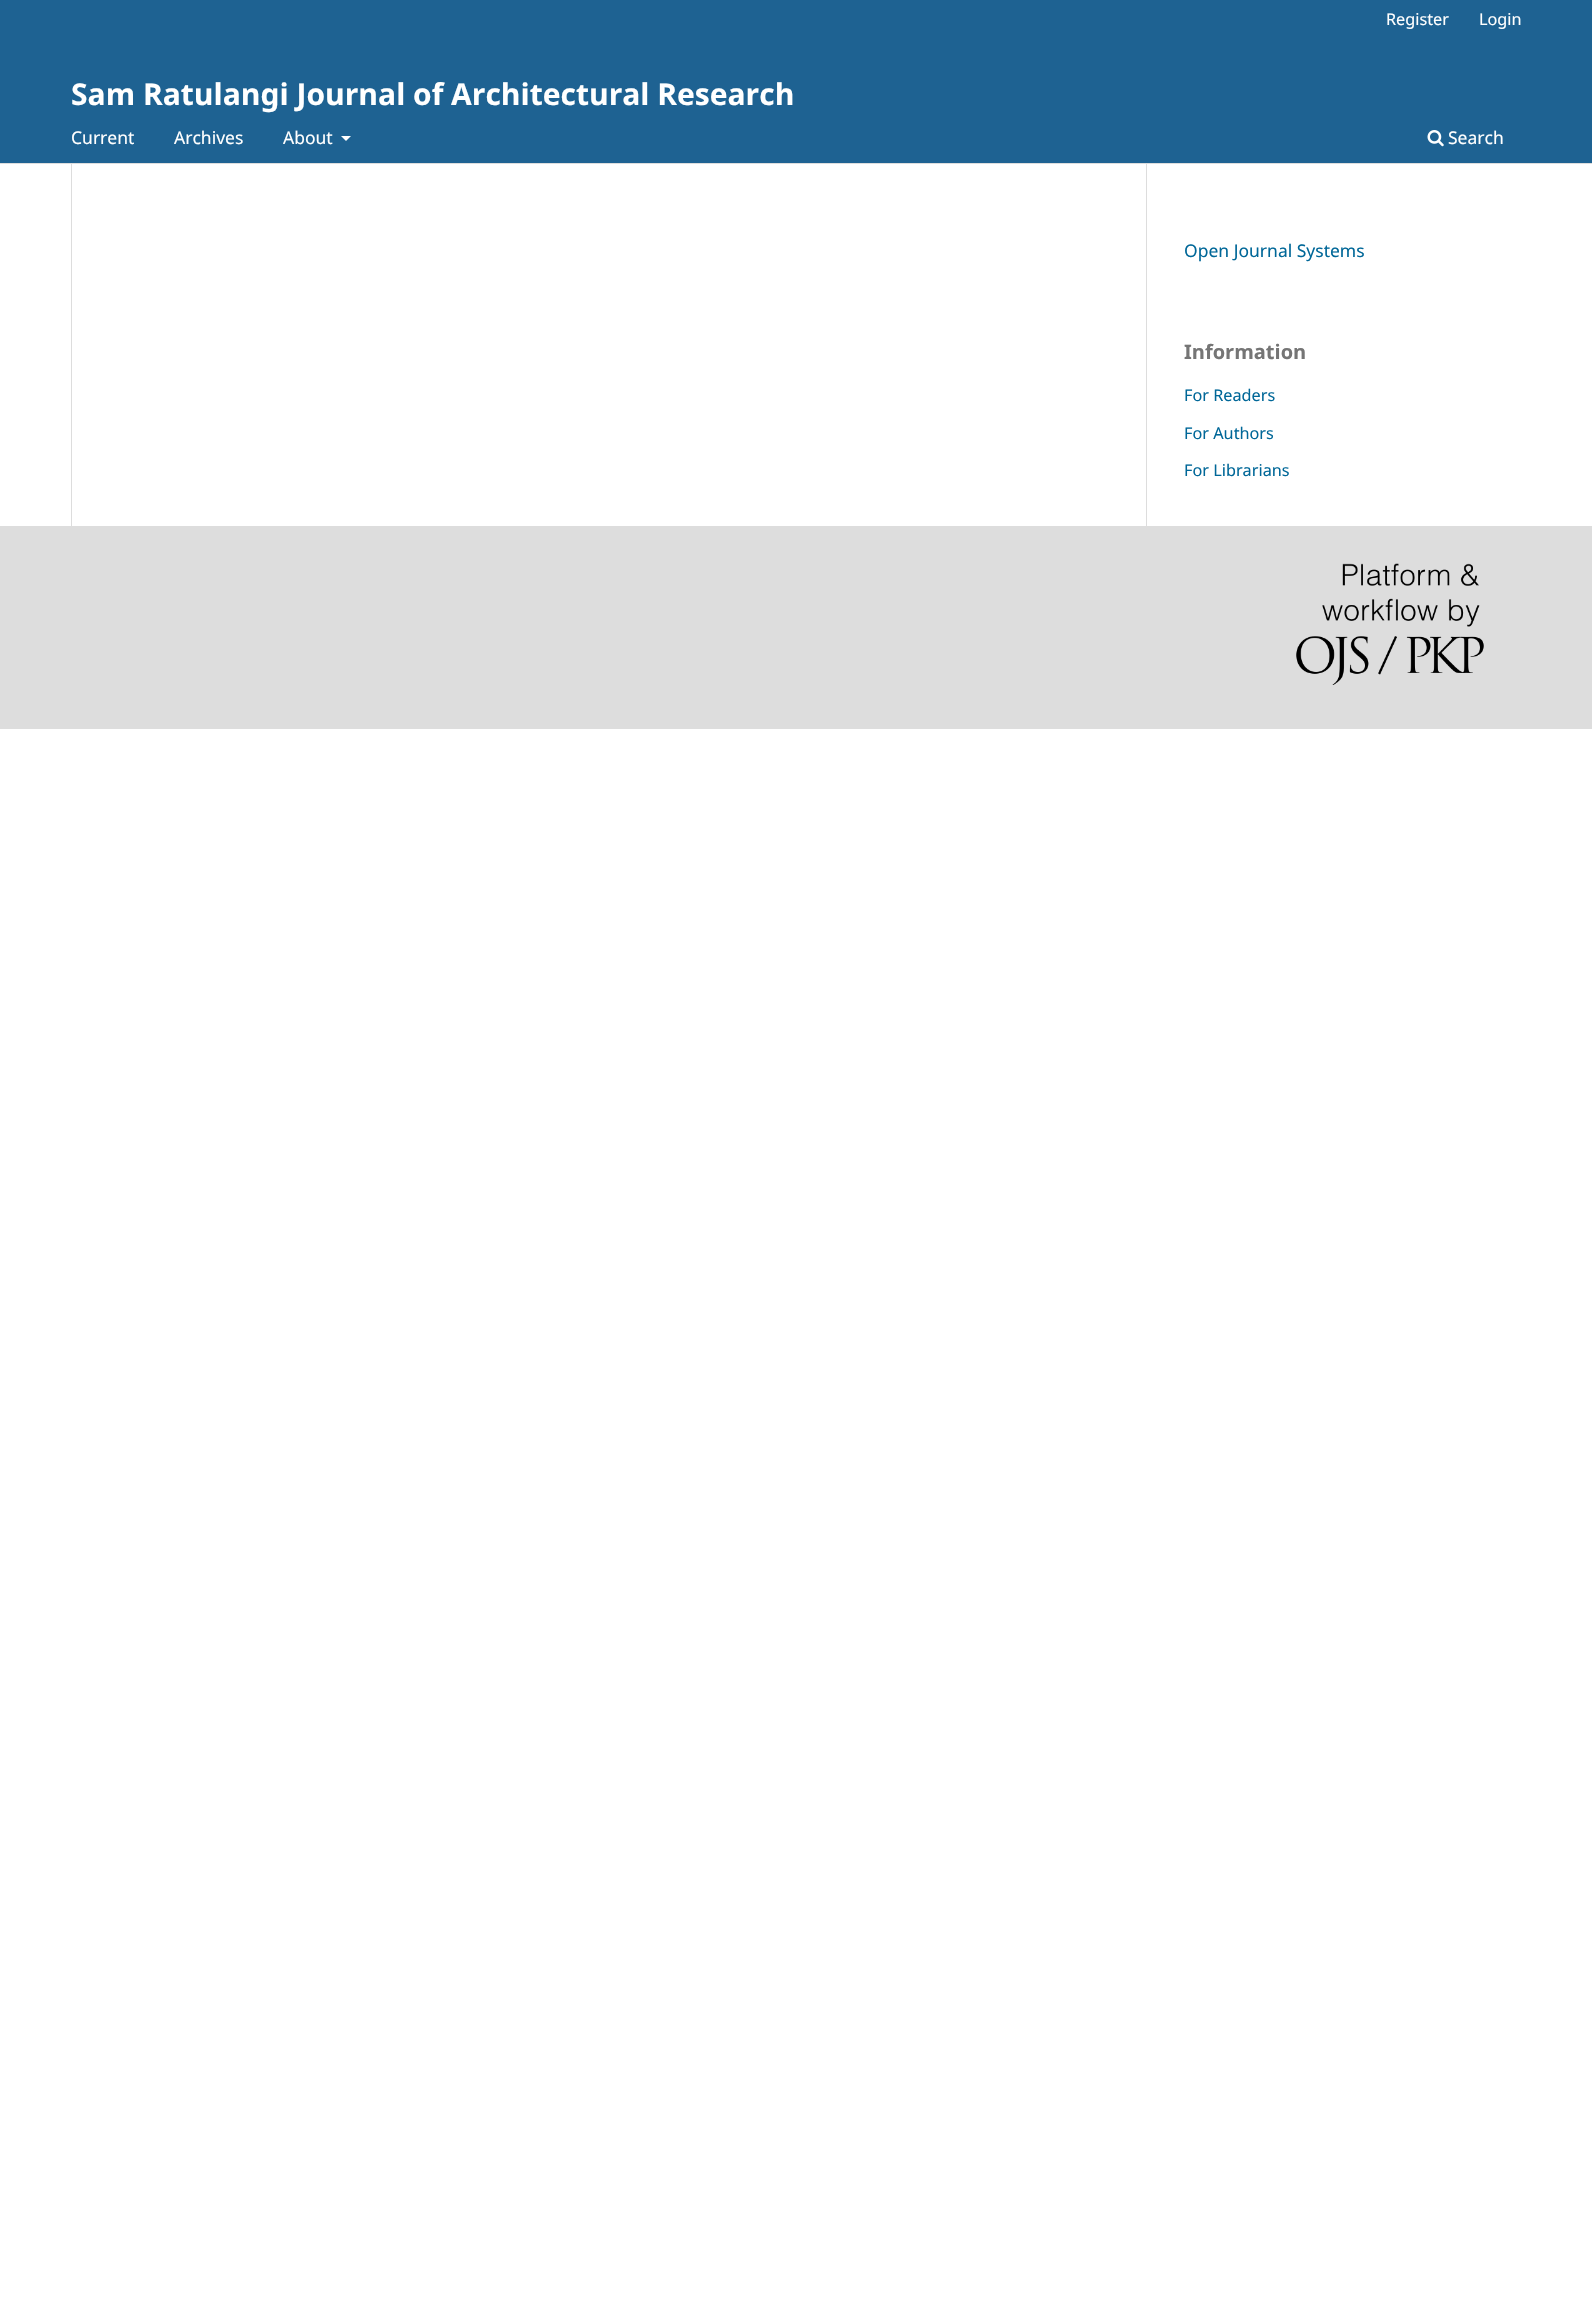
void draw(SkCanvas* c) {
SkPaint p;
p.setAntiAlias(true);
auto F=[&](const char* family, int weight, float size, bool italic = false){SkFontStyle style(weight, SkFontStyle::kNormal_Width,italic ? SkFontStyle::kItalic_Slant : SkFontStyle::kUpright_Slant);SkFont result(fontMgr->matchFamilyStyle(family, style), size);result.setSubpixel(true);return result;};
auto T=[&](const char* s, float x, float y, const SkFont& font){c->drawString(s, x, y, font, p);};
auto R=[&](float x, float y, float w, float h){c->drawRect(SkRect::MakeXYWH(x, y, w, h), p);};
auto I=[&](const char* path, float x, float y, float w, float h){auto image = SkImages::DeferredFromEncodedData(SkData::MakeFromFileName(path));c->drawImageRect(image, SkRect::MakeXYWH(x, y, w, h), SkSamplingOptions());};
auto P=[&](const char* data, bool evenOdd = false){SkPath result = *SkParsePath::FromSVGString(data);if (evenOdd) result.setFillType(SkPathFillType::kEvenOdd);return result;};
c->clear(0xffffffff);
p.setColor(0xff1e6292);
R(0,0,1592,163);
p.setColor(0xffdddddd);
R(0,163,1592,1);
auto f1 = F("Noto Sans",400,16.25);
p.setColor(0xffffffff);
T("Register",1386,25,f1);
T("Login",1479,25,f1);
auto f2 = F("Noto Sans",400,17.5);
T("Current",71,144,f2);
T("Archives",174,144,f2);
T("About",283,144,f2);
c->drawPath(P("M341 136h10l-5 5z"),p);
I("1.png",1427,130,17,17);
T("Search",1448,144,f2);
auto f3 = F("Noto Sans",700,30);
T("Sam Ratulangi Journal of Architectural Research",71,105,f3);
p.setColor(0xffdddddd);
R(71,164,1,362);
R(1146,164,1,362);
p.setColor(0xff006798);
T("Open Journal Systems",1184,257,f2);
auto f4 = F("Noto Sans",700,20);
p.setColor(0xff757575);
T("Information",1184,359,f4);
p.setColor(0xff006798);
T("For Readers",1184,401,f1);
T("For Authors",1184,439,f1);
T("For Librarians",1184,476,f1);
p.setColor(0xffdddddd);
R(0,526,1592,203);
I("2.png",1296,563,188,122);
}
